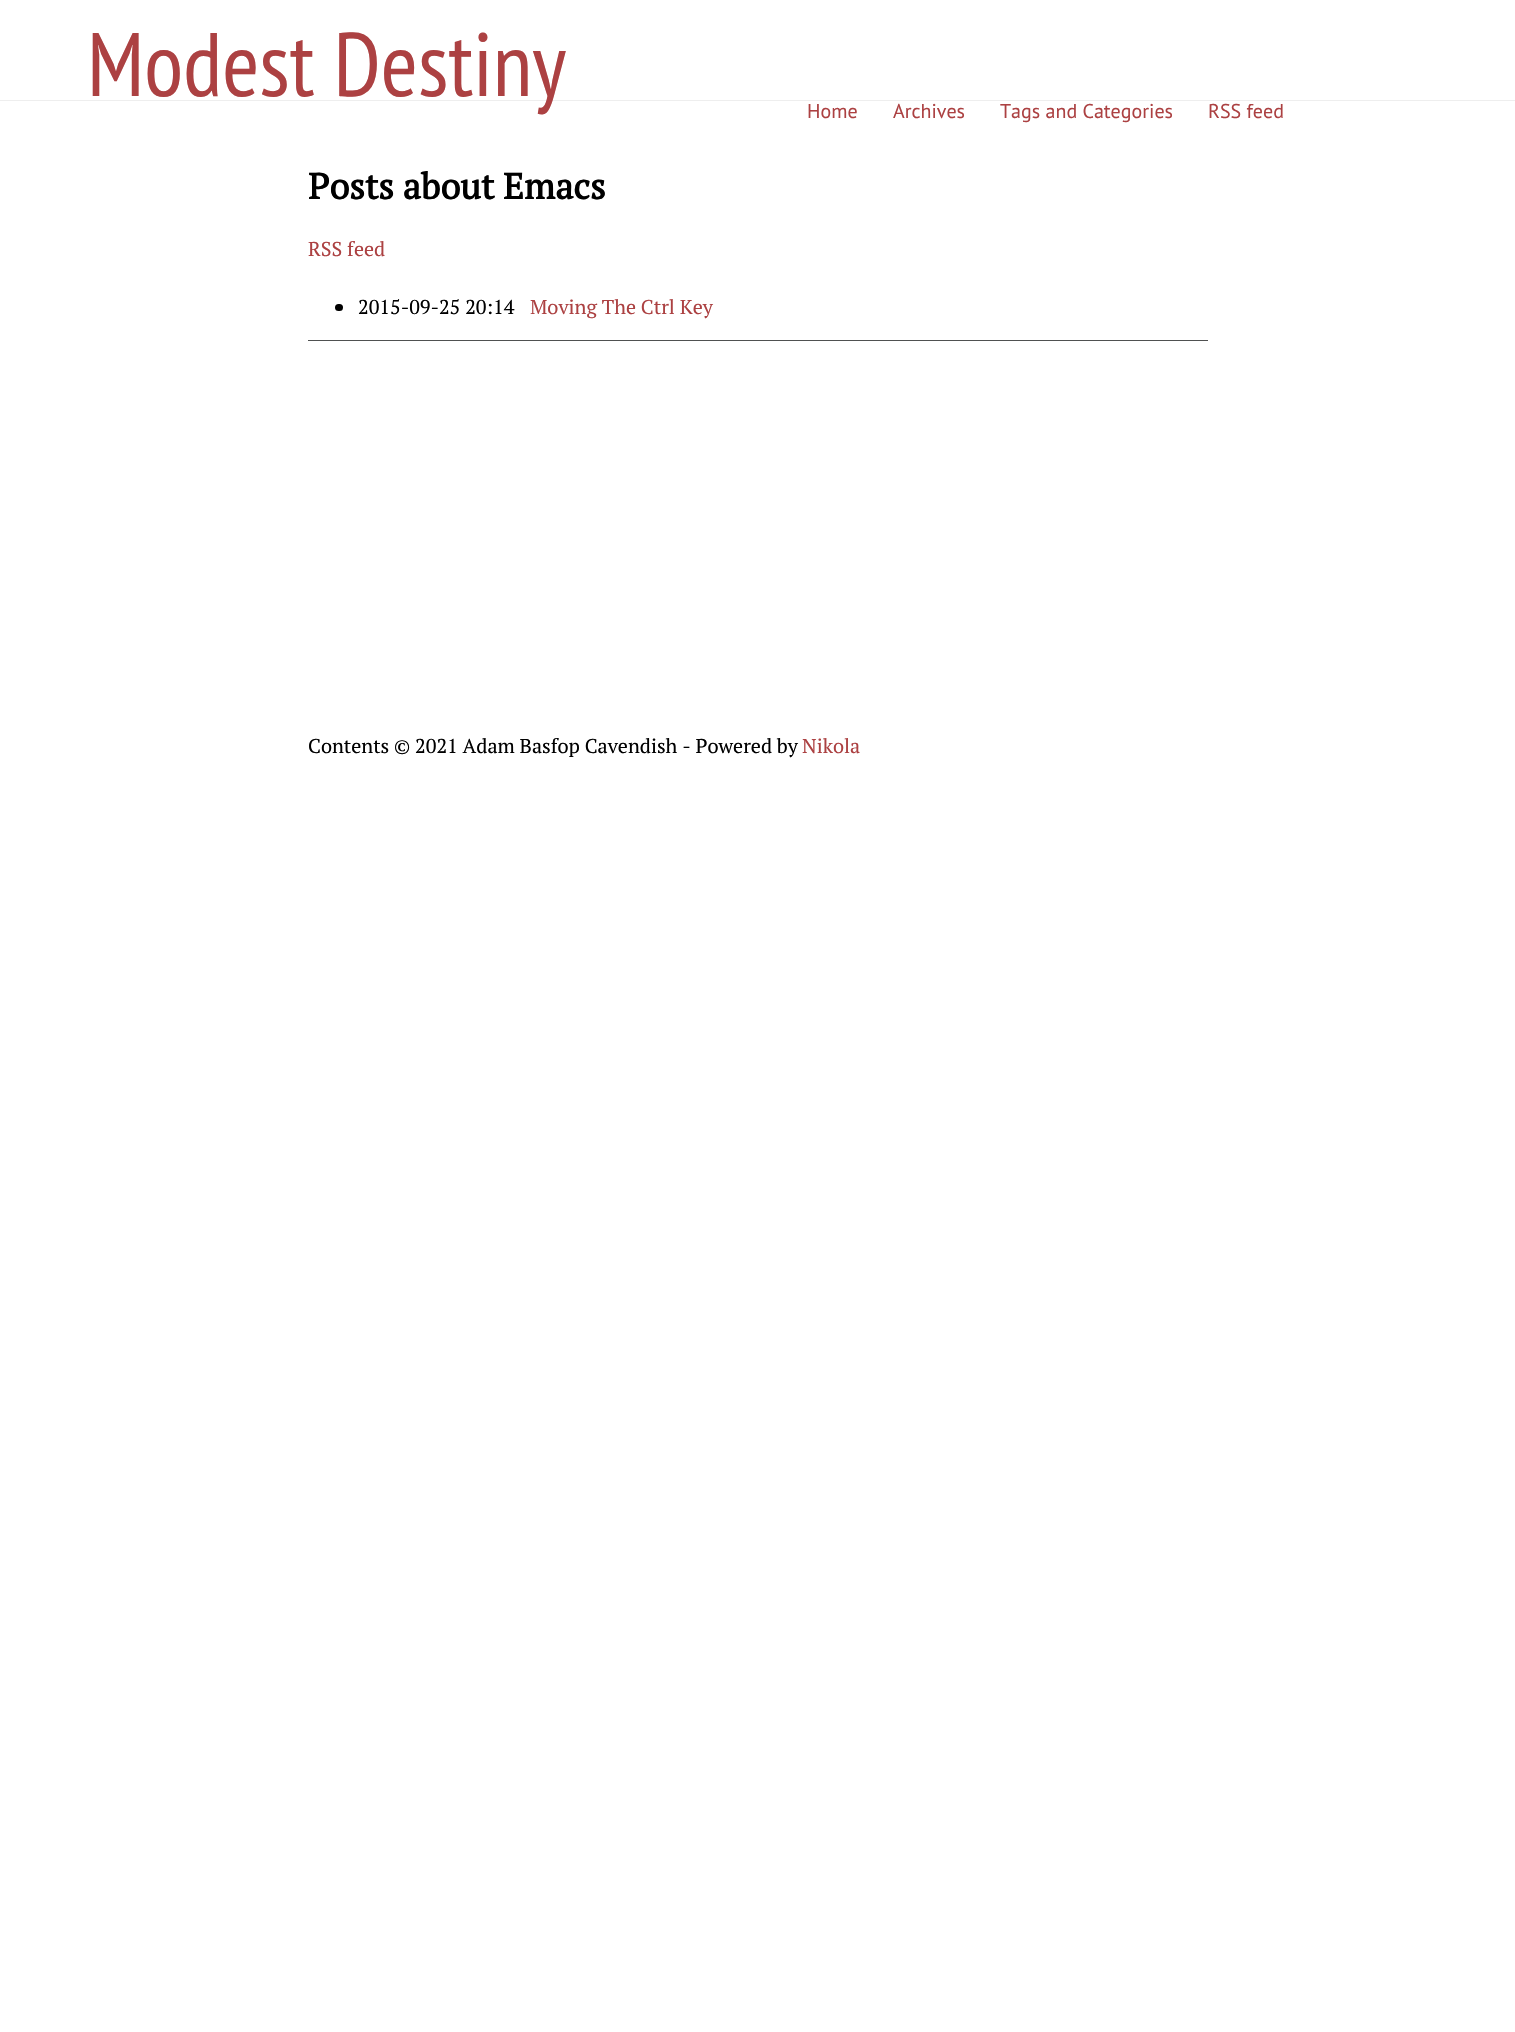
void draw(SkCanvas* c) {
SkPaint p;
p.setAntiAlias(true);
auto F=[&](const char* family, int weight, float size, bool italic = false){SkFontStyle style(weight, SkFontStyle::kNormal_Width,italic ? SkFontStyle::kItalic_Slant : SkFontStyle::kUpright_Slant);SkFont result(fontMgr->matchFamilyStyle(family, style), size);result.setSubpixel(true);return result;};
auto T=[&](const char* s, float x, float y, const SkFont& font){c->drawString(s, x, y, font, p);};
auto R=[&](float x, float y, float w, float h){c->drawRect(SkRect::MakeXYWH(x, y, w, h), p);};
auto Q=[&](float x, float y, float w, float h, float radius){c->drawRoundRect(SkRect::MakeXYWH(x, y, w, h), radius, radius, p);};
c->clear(0xffffffff);
p.setColor(0xffeeeeee);
R(0,100,1515,1);
auto f1 = F("PT Sans Narrow",400,90);
p.setColor(0xffac4142);
T("Modest Destiny",87,96,f1);
auto f2 = F("PT Sans",400,20);
T("Home",807,118,f2);
T("Archives",893,118,f2);
T("Tags and Categories",1000,118,f2);
T("RSS feed",1208,118,f2);
auto f3 = F("PT Serif",700,36);
p.setColor(0xff000000);
T("Posts about Emacs",308,199,f3);
auto f4 = F("PT Serif",400,20);
p.setColor(0xffac4142);
T("RSS feed",308,256,f4);
p.setColor(0xff000000);
Q(335,304,8,7,3.5);
T("2015-09-25 20:14",358,314,f4);
p.setColor(0xffac4142);
T("Moving The Ctrl Key",530,314,f4);
p.setColor(0xff4f5151);
R(308,340,900,1);
p.setColor(0xff000000);
T("Contents © 2021 Adam Basfop Cavendish - Powered by",308,753,f4);
p.setColor(0xffac4142);
T("Nikola",802,753,f4);
}
